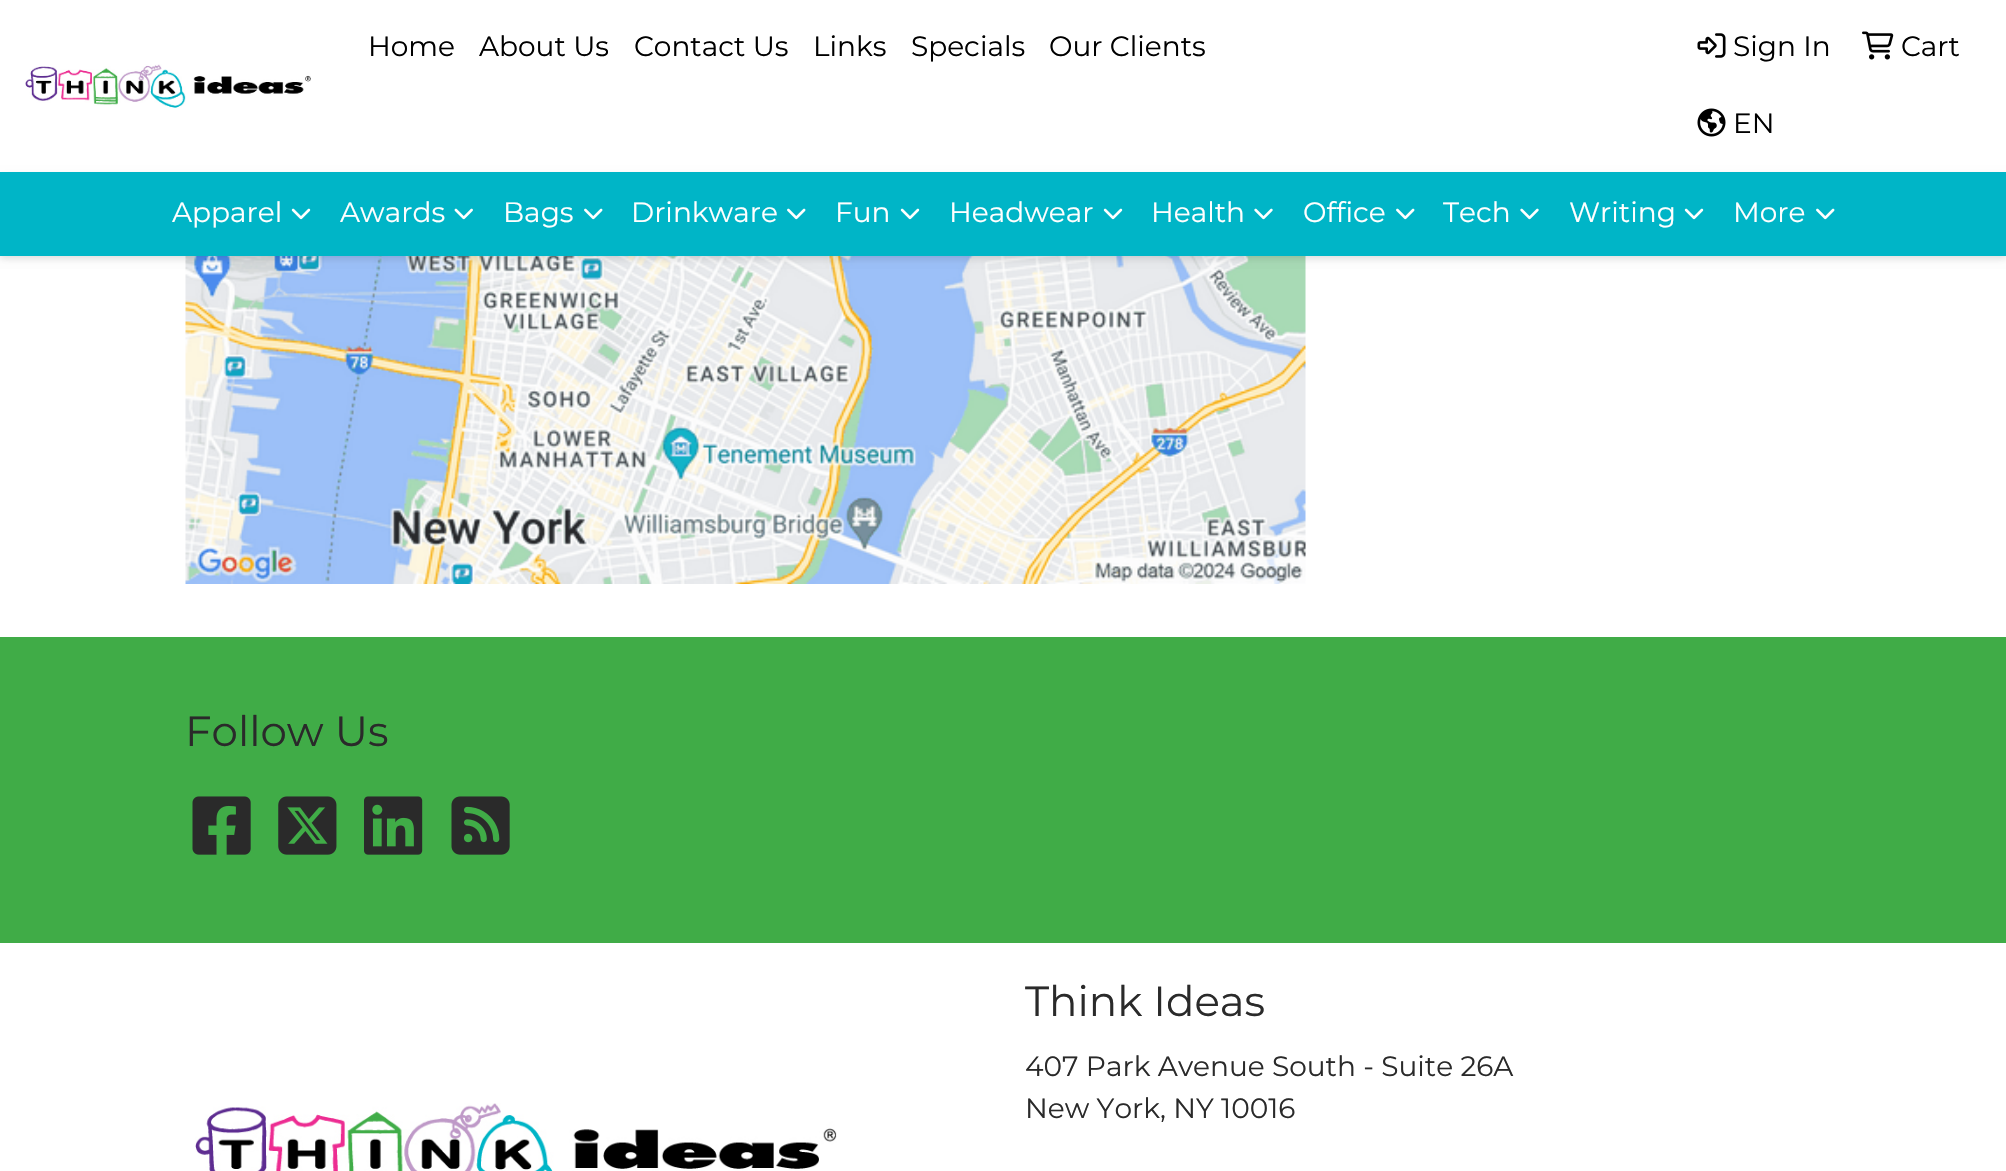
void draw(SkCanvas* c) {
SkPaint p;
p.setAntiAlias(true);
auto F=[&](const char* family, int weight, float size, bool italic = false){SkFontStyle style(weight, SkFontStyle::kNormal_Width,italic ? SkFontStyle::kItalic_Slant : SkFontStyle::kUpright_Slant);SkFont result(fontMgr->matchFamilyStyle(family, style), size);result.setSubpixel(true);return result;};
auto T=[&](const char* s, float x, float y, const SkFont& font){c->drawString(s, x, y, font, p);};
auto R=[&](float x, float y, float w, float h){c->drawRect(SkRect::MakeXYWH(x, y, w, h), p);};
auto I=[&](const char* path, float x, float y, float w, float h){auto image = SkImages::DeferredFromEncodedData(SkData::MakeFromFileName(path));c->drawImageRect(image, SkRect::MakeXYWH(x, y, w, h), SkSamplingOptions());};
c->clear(0xffffffff);
I("9.png",185,256,1121,328);
p.setColor(0x1a000000);
p.setMaskFilter(SkMaskFilter::MakeBlur(kNormal_SkBlurStyle, 4.5));
c->drawRect(SkRect::MakeXYWH(0,0,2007,256),p);
p.setMaskFilter(nullptr);
p.setColor(0xffffffff);
R(0,0,2006,172);
I("1.png",25,64,286,44);
auto f1 = F("Montserrat",100,28);
p.setColor(0xff000000);
T("Home",368,56,f1);
T("About Us",479,56,f1);
T("Contact Us",634,56,f1);
T("Links",813,56,f1);
T("Specials",911,56,f1);
T("Our Clients",1049,56,f1);
I("2.png",1697,33,29,25);
T("Sign In",1733,56,f1);
I("3.png",1862,31,32,29);
T("Cart",1901,56,f1);
I("4.png",1697,108,29,29);
T("EN",1733,133,f1);
p.setColor(0x12000000);
p.setMaskFilter(SkMaskFilter::MakeBlur(kNormal_SkBlurStyle, 3.5));
c->drawRect(SkRect::MakeXYWH(0,175,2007,84),p);
p.setMaskFilter(nullptr);
p.setColor(0xff00b5c7);
R(0,172,2006,84);
p.setColor(0xffffffff);
T("Apparel",172,222,f1);
I("5.png",291,208,20,12);
T("Awards",340,222,f1);
I("6.png",454,208,19,12);
T("Bags",503,222,f1);
I("7.png",584,208,19,12);
T("Drinkware",631,222,f1);
I("7.png",787,208,19,12);
T("Fun",835,222,f1);
I("5.png",900,208,20,12);
T("Headwear",949,222,f1);
I("5.png",1103,208,20,12);
T("Health",1151,222,f1);
I("8.png",1254,208,19,12);
T("Office",1303,222,f1);
I("7.png",1396,208,19,12);
T("Tech",1443,222,f1);
I("8.png",1520,208,19,12);
T("Writing",1569,222,f1);
I("5.png",1684,208,20,12);
T("More",1733,222,f1);
I("7.png",1816,208,19,12);
p.setColor(0xff40ac47);
R(0,637,2006,306);
auto f2 = F("Montserrat",100,42);
p.setColor(0xff2a2a2a);
T("Follow Us",185,746,f2);
I("10.png",192,796,59,59);
I("11.png",278,796,59,59);
I("12.png",364,796,59,59);
I("13.png",451,796,59,59);
T("Think Ideas",1025,1016,f2);
T("407 Park Avenue South - Suite 26A",1025,1076,f1);
T("New York, NY 10016",1025,1118,f1);
I("14.png",195,1103,642,68);
}
